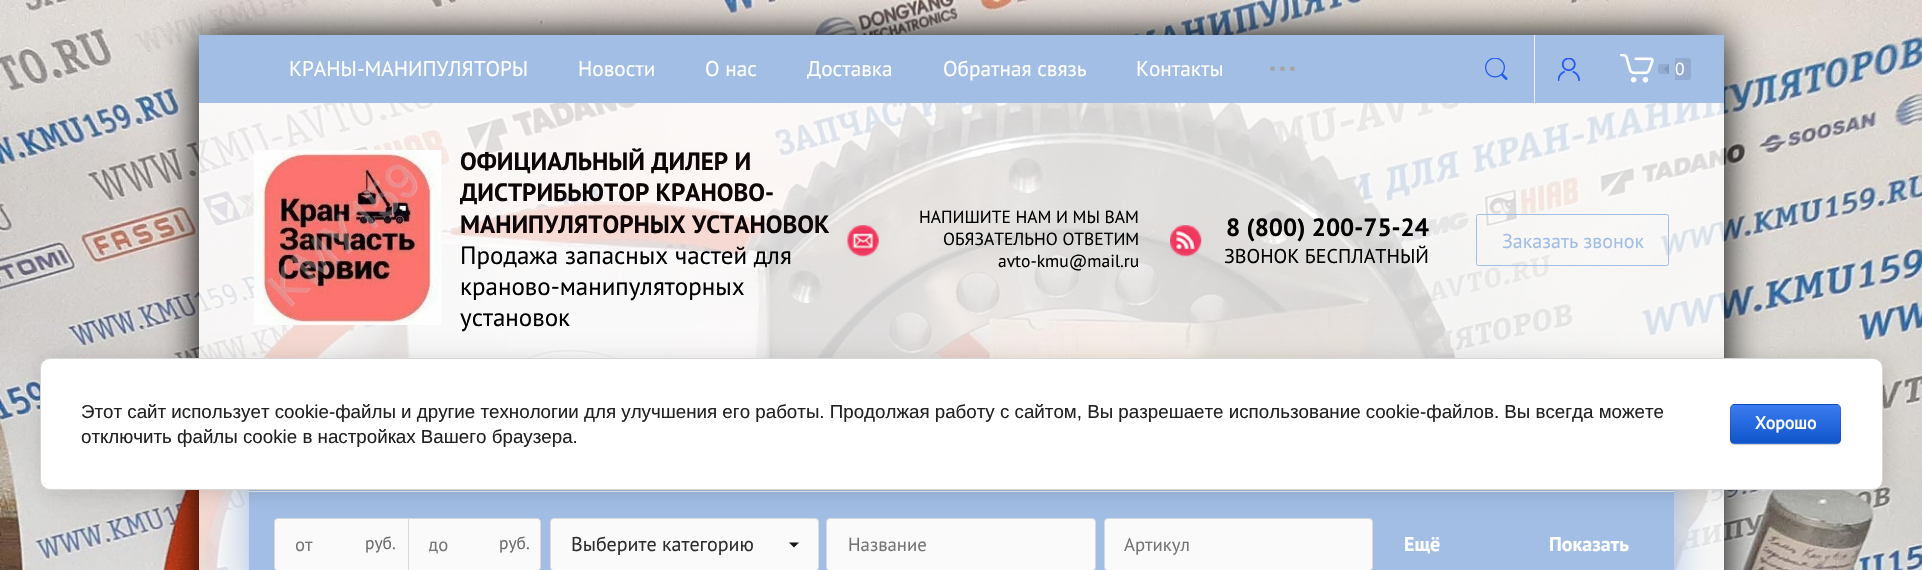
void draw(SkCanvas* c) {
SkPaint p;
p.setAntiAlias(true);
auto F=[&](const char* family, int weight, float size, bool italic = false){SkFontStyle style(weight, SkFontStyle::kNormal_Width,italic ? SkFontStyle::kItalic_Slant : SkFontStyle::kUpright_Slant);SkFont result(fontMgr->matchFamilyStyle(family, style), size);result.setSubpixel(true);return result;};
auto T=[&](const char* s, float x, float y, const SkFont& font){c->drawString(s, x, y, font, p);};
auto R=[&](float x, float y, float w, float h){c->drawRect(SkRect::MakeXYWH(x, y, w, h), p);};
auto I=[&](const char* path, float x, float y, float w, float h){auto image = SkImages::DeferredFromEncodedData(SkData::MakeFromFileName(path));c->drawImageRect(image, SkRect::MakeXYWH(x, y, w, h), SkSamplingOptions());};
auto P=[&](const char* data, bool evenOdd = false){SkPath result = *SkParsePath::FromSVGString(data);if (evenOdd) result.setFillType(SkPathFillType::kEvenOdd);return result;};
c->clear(0xffffffff);
I("1.png",0,0,1922,570);
c->save();
c->clipPath(P("M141 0h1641v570h-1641zm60.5 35h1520c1.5 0 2.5 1 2.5 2.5v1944c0 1.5-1 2.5-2.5 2.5h-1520c-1.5 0-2.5-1-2.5-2.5v-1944c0-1.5 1-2.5 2.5-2.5z",true),true);
p.setColor(0xff000000);
p.setMaskFilter(SkMaskFilter::MakeBlur(kNormal_SkBlurStyle, 19));
c->drawRoundRect(SkRect::MakeXYWH(199,35,1525,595),2.5,2.5,p);
p.setMaskFilter(nullptr);
c->restore();
p.setColor(0xccffffff);
R(199,103,1525,467);
p.setColor(0xffa2bee5);
R(199,35,1525,68);
auto f1 = F("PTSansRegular",400,21.25);
p.setColor(0xffffffff);
T("КРАНЫ-МАНИПУЛЯТОРЫ",289,76,f1);
T("Новости",578,76,f1);
T("О нас",705,76,f1);
T("Доставка",807,76,f1);
T("Обратная связь",943,76,f1);
T("Контакты",1136,76,f1);
I("2.png",1270,66,25,5);
I("3.png",1485,58,23,22);
p.setColor(0xffededed);
R(1534,35,1,68);
I("4.png",1558,58,22,23);
I("5.png",1620,54,34,29);
p.setColor(0xff92abce);
c->drawPath(P("M1660.5 64h8.5v10h-8.5c-1.5 0-2.5-1-2.5-2.5v-5c0-1.5 1-2.5 2.5-2.5z"),p);
c->drawPath(P("M1675 58h13.5c1.5 0 2.5 1 2.5 2.5v17c0 1.5-1 2.5-2.5 2.5h-13.5z"),p);
p.setColor(0xff839ab9);
c->drawPath(P("M1669 64v10l-5-5z"),p);
auto f2 = F("PTSansRegular",400,17.5);
p.setColor(0xffffffff);
T("0",1675,75,f2);
I("6.png",253,150,189,175);
auto f3 = F("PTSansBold",700,25);
p.setColor(0xff0e0606);
T("ОФИЦИАЛЬНЫЙ ДИЛЕР И",460,170,f3);
T("ДИСТРИБЬЮТОР КРАНОВО-",460,201,f3);
T("МАНИПУЛЯТОРНЫХ УСТАНОВОК",460,233,f3);
auto f4 = F("PTSansRegular",400,25);
p.setColor(0xff000000);
T("Продажа запасных частей для",460,264,f4);
T("краново-манипуляторных",460,295,f4);
T("установок",460,326,f4);
I("7.png",847,225,32,32);
T("НАПИШИТЕ НАМ И МЫ ВАМ",919,223,f2);
T("ОБЯЗАТЕЛЬНО ОТВЕТИМ",943,245,f2);
T("avto-kmu@mail.ru",998,267,f2);
I("8.png",1170,225,32,32);
T("8 (800) 200-75-24",1226,236,f3);
auto f5 = F("PTSansRegular",400,20);
T("ЗВОНОК БЕСПЛАТНЫЙ",1224,263,f5);
p.setStroke(true);
p.setStrokeWidth(1);
p.setColor(0xffa2bee5);
c->drawRoundRect(SkRect::MakeXYWH(1476.5,214.5,192,51),2,2,p);
p.setStroke(false);
T("Заказать звонок",1502,248,f5);
p.setMaskFilter(SkMaskFilter::MakeBlur(kNormal_SkBlurStyle, 19));
c->drawRoundRect(SkRect::MakeXYWH(249,428,1425,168),4,4,p);
p.setMaskFilter(nullptr);
R(249,490,1425,80);
p.setColor(0xffededed);
R(249,491,1425,1);
p.setColor(0xfffafafa);
c->drawPath(P("M408.5 518.5h128.5c2 0 3.5 1.5 3.5 3.5v45c0 2-1.5 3.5-3.5 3.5h-128.5z"),p);
p.setStroke(true);
p.setColor(0xffd5dade);
c->drawPath(P("M408.5 518.5h128.5c2 0 3.5 1.5 3.5 3.5v45c0 2-1.5 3.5-3.5 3.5h-128.5z"),p);
p.setStroke(false);
p.setColor(0xfffafafa);
c->drawPath(P("M278 518.5h130.5v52h-130.5c-2 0-3.5-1.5-3.5-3.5v-45c0-2 1.5-3.5 3.5-3.5z"),p);
p.setStroke(true);
p.setColor(0xffd5dade);
c->drawPath(P("M278 518.5h130.5v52h-130.5c-2 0-3.5-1.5-3.5-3.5v-45c0-2 1.5-3.5 3.5-3.5z"),p);
auto f6 = F("PTSansRegular",400,18.75);
p.setStroke(false);
p.setColor(0xff757575);
T("от",295,551,f6);
p.setColor(0xff6d6c6c);
T("руб.",365,549,f2);
c->save();
c->clipRect(SkRect::MakeXYWH(429,533,66,23));
p.setColor(0xff757575);
T("до",428,551,f6);
c->restore();
p.setColor(0xff6d6c6c);
T("руб.",499,549,f2);
p.setColor(0xfffafafa);
c->drawRoundRect(SkRect::MakeXYWH(550.5,518.5,268,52),3.5,3.5,p);
p.setStroke(true);
p.setColor(0xffdddddd);
c->drawRoundRect(SkRect::MakeXYWH(550.5,518.5,268,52),3.5,3.5,p);
p.setStroke(false);
p.setColor(0xff2e2e2e);
T("Выберите категорию",571,551,f5);
p.setColor(0xff141915);
c->drawPath(P("M789 542.5h10l-5 5z"),p);
p.setColor(0xfffafafa);
c->drawRoundRect(SkRect::MakeXYWH(826.5,518.5,269,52),3.5,3.5,p);
p.setStroke(true);
p.setColor(0xffd5dade);
c->drawRoundRect(SkRect::MakeXYWH(826.5,518.5,269,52),3.5,3.5,p);
p.setStroke(false);
p.setColor(0xff757575);
T("Название",848,551,f6);
p.setColor(0xfffafafa);
c->drawRoundRect(SkRect::MakeXYWH(1104.5,518.5,268,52),3.5,3.5,p);
p.setStroke(true);
p.setColor(0xffd5dade);
c->drawRoundRect(SkRect::MakeXYWH(1104.5,518.5,268,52),3.5,3.5,p);
p.setStroke(false);
p.setColor(0xff757575);
T("Артикул",1124,551,f6);
auto f7 = F("PTSansBold",700,20);
p.setColor(0xffffffff);
T("Ещё",1404,551,f7);
T("Показать",1549,551,f7);
p.setColor(0x24000000);
p.setMaskFilter(SkMaskFilter::MakeBlur(kNormal_SkBlurStyle, 11));
c->drawRoundRect(SkRect::MakeXYWH(43,360,1842,133),10,10,p);
p.setMaskFilter(nullptr);
p.setColor(0xffffffff);
c->drawRoundRect(SkRect::MakeXYWH(40.5,358.5,1842,131),9.5,9.5,p);
p.setStroke(true);
p.setColor(0xffd6d6d6);
c->drawRoundRect(SkRect::MakeXYWH(40.5,358.5,1842,131),9.5,9.5,p);
auto f8 = F("Liberation Sans",400,18.75);
p.setStroke(false);
p.setColor(0xff212121);
T("Этот сайт использует cookie-файлы и другие технологии для улучшения его работы. Продолжая работу с сайтом, Вы разрешаете использование cookie-файлов. Вы всегда можете",81,418,f8);
T("отключить файлы cookie в настройках Вашего браузера.",81,443,f8);
p.setColor(0x33000000);
p.setMaskFilter(SkMaskFilter::MakeBlur(kNormal_SkBlurStyle, .5));
c->drawRoundRect(SkRect::MakeXYWH(1730,405,111,40),5,5,p);
p.setMaskFilter(nullptr);
c->save();
c->clipPath(P("M1735 404h101c3 0 5 2 5 5v30c0 3-2 5-5 5h-101c-3 0-5-2-5-5v-30c0-3 2-5 5-5z"),true);
{
const SkColor colors[] = {0xff3b7cef,0xff1155cc};
const float stops[] = {0,1};
const SkPoint ends[] = {{1786,368}, {1786,405}};
p.setShader(SkGradientShader::MakeLinear(ends, colors, stops, 2, SkTileMode::kClamp));
p.setAlpha(255);
}
R(1730,404,111,1);
{
const SkColor colors[] = {0xff3b7cef,0xff1155cc};
const float stops[] = {0,1};
const SkPoint ends[] = {{1786,405}, {1786,443}};
p.setShader(SkGradientShader::MakeLinear(ends, colors, stops, 2, SkTileMode::kClamp));
p.setAlpha(255);
}
R(1730,405,111,38);
{
const SkColor colors[] = {0xff3b7cef,0xff1155cc};
const float stops[] = {0,1};
const SkPoint ends[] = {{1786,443}, {1786,480}};
p.setShader(SkGradientShader::MakeLinear(ends, colors, stops, 2, SkTileMode::kClamp));
p.setAlpha(255);
}
R(1730,443,111,1);
c->restore();
p.setStroke(true);
p.setShader(nullptr);
p.setColor(0x1a000000);
c->drawRoundRect(SkRect::MakeXYWH(1730.5,404.5,110,39),4.5,4.5,p);
auto f9 = F("PTSansRegular",700,17.5);
p.setStroke(false);
p.setColor(0xffffffff);
T("Хорошо",1755,429,f9);
}
